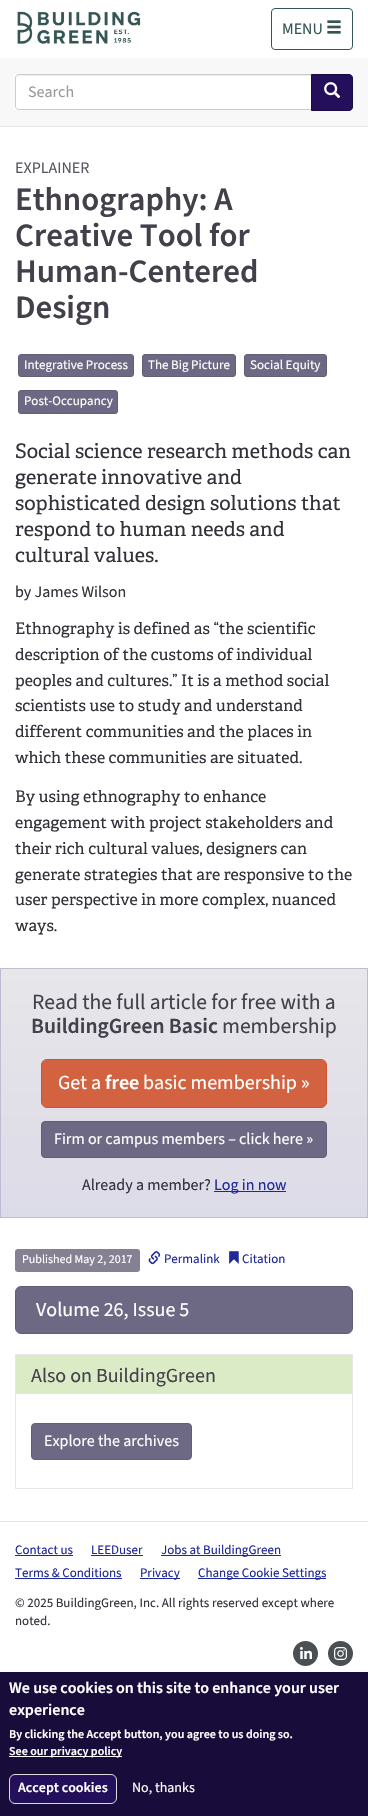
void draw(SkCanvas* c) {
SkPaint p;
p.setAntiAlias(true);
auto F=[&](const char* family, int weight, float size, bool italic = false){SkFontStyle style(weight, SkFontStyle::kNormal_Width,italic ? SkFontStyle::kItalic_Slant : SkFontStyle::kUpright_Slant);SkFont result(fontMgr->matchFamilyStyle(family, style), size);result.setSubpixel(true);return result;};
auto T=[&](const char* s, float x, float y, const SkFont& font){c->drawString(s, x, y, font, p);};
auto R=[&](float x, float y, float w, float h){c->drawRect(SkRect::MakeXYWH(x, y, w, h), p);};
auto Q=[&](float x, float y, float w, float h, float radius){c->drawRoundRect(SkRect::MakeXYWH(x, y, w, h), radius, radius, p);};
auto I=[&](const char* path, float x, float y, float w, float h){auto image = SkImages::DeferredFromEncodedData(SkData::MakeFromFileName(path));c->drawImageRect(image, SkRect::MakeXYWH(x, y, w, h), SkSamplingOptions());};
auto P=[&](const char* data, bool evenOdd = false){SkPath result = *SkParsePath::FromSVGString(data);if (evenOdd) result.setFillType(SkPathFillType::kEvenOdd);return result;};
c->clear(0xffffffff);
p.setColor(0xfff8f8f8);
R(0,58,368,68);
p.setColor(0xffe7e7e7);
R(0,126,368,1);
I("1.png",17,11,124,33);
p.setStroke(true);
p.setStrokeWidth(1);
p.setColor(0xff355555);
c->drawRoundRect(SkRect::MakeXYWH(271.5,8.5,81,41),3.5,3.5,p);
auto f1 = F("Source Sans Pro",400,16);
p.setStroke(false);
T("MENU",282,34,f1);
I("2.png",327,20,14,14);
p.setColor(0xffffffff);
c->drawPath(P("M19 74h293v36h-293c-2 0-4-2-4-4v-28c0-2 2-4 4-4z"),p);
p.setColor(0xffececec);
c->drawPath(P("M19 76h292v-1h-292c-2 0-3 2-3 4c0-2 1-3 3-3z"),p);
p.setStroke(true);
p.setColor(0xffcccccc);
c->drawPath(P("M19 74.5h292.5v35h-292.5c-2 0-3.5-1.5-3.5-3.5v-28c0-2 1.5-3.5 3.5-3.5z"),p);
p.setStroke(false);
p.setColor(0xff999999);
T("Search",28,97,f1);
p.setColor(0xff230f5a);
c->drawPath(P("M311.5 74.5h37.5c2 0 3.5 1.5 3.5 3.5v29c0 2-1.5 3.5-3.5 3.5h-37.5z"),p);
p.setStroke(true);
p.setColor(0xff1b0b44);
c->drawPath(P("M311.5 74.5h37.5c2 0 3.5 1.5 3.5 3.5v29c0 2-1.5 3.5-3.5 3.5h-37.5z"),p);
I("3.png",324,82,17,17);
p.setStroke(false);
p.setColor(0xff5c5767);
T("EXPLAINER",15,173,f1);
auto f2 = F("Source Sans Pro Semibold",600,32.75);
p.setColor(0xff44404b);
T("Ethnography: A",15,210,f2);
T("Creative Tool for",15,246,f2);
T("Human-Centered",15,282,f2);
T("Design",15,318,f2);
p.setColor(0xff6d6984);
c->drawRoundRect(SkRect::MakeXYWH(18.5,354.5,115,22),2.5,2.5,p);
p.setStroke(true);
p.setColor(0xff615e76);
c->drawRoundRect(SkRect::MakeXYWH(18.5,354.5,115,22),2.5,2.5,p);
auto f3 = F("Source Sans Pro",400,13);
p.setStroke(false);
p.setColor(0xffffffff);
T("Integrative Process",24,369,f3);
p.setColor(0xff6d6984);
c->drawRoundRect(SkRect::MakeXYWH(142.5,354.5,93,22),2.5,2.5,p);
p.setStroke(true);
p.setColor(0xff615e76);
c->drawRoundRect(SkRect::MakeXYWH(142.5,354.5,93,22),2.5,2.5,p);
p.setStroke(false);
p.setColor(0xffffffff);
T("The Big Picture",148,369,f3);
p.setColor(0xff6d6984);
c->drawRoundRect(SkRect::MakeXYWH(244.5,354.5,82,22),2.5,2.5,p);
p.setStroke(true);
p.setColor(0xff615e76);
c->drawRoundRect(SkRect::MakeXYWH(244.5,354.5,82,22),2.5,2.5,p);
p.setStroke(false);
p.setColor(0xffffffff);
T("Social Equity",250,369,f3);
p.setColor(0xff6d6984);
c->drawRoundRect(SkRect::MakeXYWH(18.5,390.5,99,23),2.5,2.5,p);
p.setStroke(true);
p.setColor(0xff615e76);
c->drawRoundRect(SkRect::MakeXYWH(18.5,390.5,99,23),2.5,2.5,p);
p.setStroke(false);
p.setColor(0xffffffff);
T("Post-Occupancy",24,405,f3);
auto f4 = F("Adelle",400,20);
p.setColor(0xff333139);
T("Social science research methods can",15,458,f4);
T("generate innovative and",15,484,f4);
T("sophisticated design solutions that",15,510,f4);
T("respond to human needs and",15,536,f4);
T("cultural values.",15,562,f4);
T("by James Wilson",15,597,f1);
auto f5 = F("Adelle",400,16);
T("Ethnography is defined as “the scientific",15,634,f5);
T("description of the customs of individual",15,660,f5);
T("peoples and cultures.” It is a method social",15,686,f5);
T("scientists use to study and understand",15,711,f5);
T("different communities and the places in",15,737,f5);
T("which these communities are situated.",15,763,f5);
T("By using ethnography to enhance",15,802,f5);
T("engagement with project stakeholders and",15,828,f5);
T("their rich cultural values, designers can",15,854,f5);
T("generate strategies that are responsive to the",15,880,f5);
T("user perspective in more complex, nuanced",15,905,f5);
T("ways.",15,931,f5);
{
const SkColor colors[] = {0xffe7e6e9,0xffdcdbe8};
const float stops[] = {0,1};
const SkPoint ends[] = {{184,969}, {184,1217}};
p.setShader(SkGradientShader::MakeLinear(ends, colors, stops, 2, SkTileMode::kClamp));
p.setAlpha(255);
}
R(1,969,366,248);
p.setStroke(true);
p.setShader(nullptr);
p.setColor(0xffbebcd4);
c->drawRect(SkRect::MakeXYWH(.5,968.5,367,249),p);
auto f6 = F("Source Sans Pro",400,21.6);
p.setStroke(false);
p.setColor(0xff44404b);
T("Read the full article for free with a",32,1009,f6);
auto f7 = F("Source Sans Pro Semibold",600,21.6);
T("BuildingGreen Basic",31,1033,f7);
T("membership",222,1033,f6);
p.setColor(0xffd36340);
c->drawRoundRect(SkRect::MakeXYWH(41.5,1059.5,285,48),5.5,5.5,p);
p.setStroke(true);
p.setColor(0xffcb542f);
c->drawRoundRect(SkRect::MakeXYWH(41.5,1059.5,285,48),5.5,5.5,p);
auto f8 = F("Source Sans Pro",400,20);
p.setStroke(false);
p.setColor(0xffffffff);
T("Get a",58,1089,f8);
auto f9 = F("Source Sans Pro Semibold",600,20);
T("free",105,1089,f9);
T("basic membership »",143,1089,f8);
p.setColor(0xff6d6984);
c->drawRoundRect(SkRect::MakeXYWH(41.5,1121.5,285,36),3.5,3.5,p);
p.setStroke(true);
p.setColor(0xff615e76);
c->drawRoundRect(SkRect::MakeXYWH(41.5,1121.5,285,36),3.5,3.5,p);
p.setStroke(false);
p.setColor(0xffffffff);
T("Firm or campus members – click here »",54,1144,f1);
p.setColor(0xff333139);
T("Already a member?",82,1190,f1);
p.setColor(0xff1f2898);
R(214,1191,72,1);
T("Log in now",214,1190,f1);
p.setColor(0xff868093);
Q(15,1249,125,23,3);
auto f10 = F("Source Sans Pro",400,12);
p.setColor(0xffffffff);
T("Published May 2, 2017",22,1263,f10);
I("4.png",148,1251,13,14);
p.setColor(0xff1f2898);
T("Permalink",164,1263,f3);
I("5.png",229,1251,10,13);
T("Citation",242,1263,f3);
p.setColor(0xff6d6984);
c->drawRoundRect(SkRect::MakeXYWH(15.5,1286.5,337,47),5.5,5.5,p);
p.setStroke(true);
p.setColor(0xff615e76);
c->drawRoundRect(SkRect::MakeXYWH(15.5,1286.5,337,47),5.5,5.5,p);
p.setStroke(false);
p.setColor(0xffffffff);
T("Volume 26, Issue 5",36,1316,f8);
p.setStroke(true);
p.setColor(0xffe7e6e9);
c->drawRect(SkRect::MakeXYWH(15.5,1354.5,337,134),p);
p.setStroke(false);
p.setColor(0xffdaebc6);
R(16,1355,336,39);
p.setColor(0xff44404b);
T("Also on BuildingGreen",31,1382,f8);
p.setColor(0xff6d6984);
c->drawRoundRect(SkRect::MakeXYWH(31.5,1423.5,160,36),3.5,3.5,p);
p.setStroke(true);
p.setColor(0xff615e76);
c->drawRoundRect(SkRect::MakeXYWH(31.5,1423.5,160,36),3.5,3.5,p);
p.setStroke(false);
p.setColor(0xffffffff);
T("Explore the archives",44,1446,f1);
p.setColor(0xffe5e5e5);
R(0,1521,368,1);
p.setColor(0xff1f2898);
T("Contact us",15,1554,f3);
R(15,1555,58,1);
T("LEEDuser",91,1554,f3);
R(91,1555,52,1);
R(161,1555,120,1);
T("Jobs at BuildingGreen",161,1554,f3);
T("Terms & Conditions",15,1577,f3);
R(15,1578,107,1);
R(140,1578,40,1);
T("Privacy",140,1577,f3);
R(198,1578,128,1);
T("Change Cookie Settings",198,1577,f3);
p.setColor(0xff333139);
T("© 2025 BuildingGreen, Inc. All rights reserved except where",15,1607,f3);
T("noted.",15,1625,f3);
I("6.png",293,1641,25,25);
I("7.png",328,1641,25,25);
p.setColor(0xff180c3a);
R(0,1672,368,144);
auto f11 = F("Source Sans Pro Semibold",600,16);
p.setColor(0xffffffff);
T("We use cookies on this site to enhance your user",9,1693,f11);
T("experience",9,1715,f11);
auto f12 = F("Source Sans Pro Semibold",600,12);
T("By clicking the Accept button, you agree to us doing so.",9,1738,f12);
R(9,1756,113,1);
T("See our privacy policy",9,1755,f12);
p.setColor(0xff230f5a);
c->drawRoundRect(SkRect::MakeXYWH(9.5,1774.5,107,29),5.5,5.5,p);
p.setStroke(true);
p.setColor(0xffdcdcdc);
c->drawRoundRect(SkRect::MakeXYWH(9.5,1774.5,107,29),5.5,5.5,p);
auto f13 = F("Source Sans Pro Semibold",600,14);
p.setStroke(false);
p.setColor(0xffffffff);
T("Accept cookies",18,1792,f13);
auto f14 = F("Source Sans Pro",400,14);
T("No, thanks",132,1792,f14);
}
